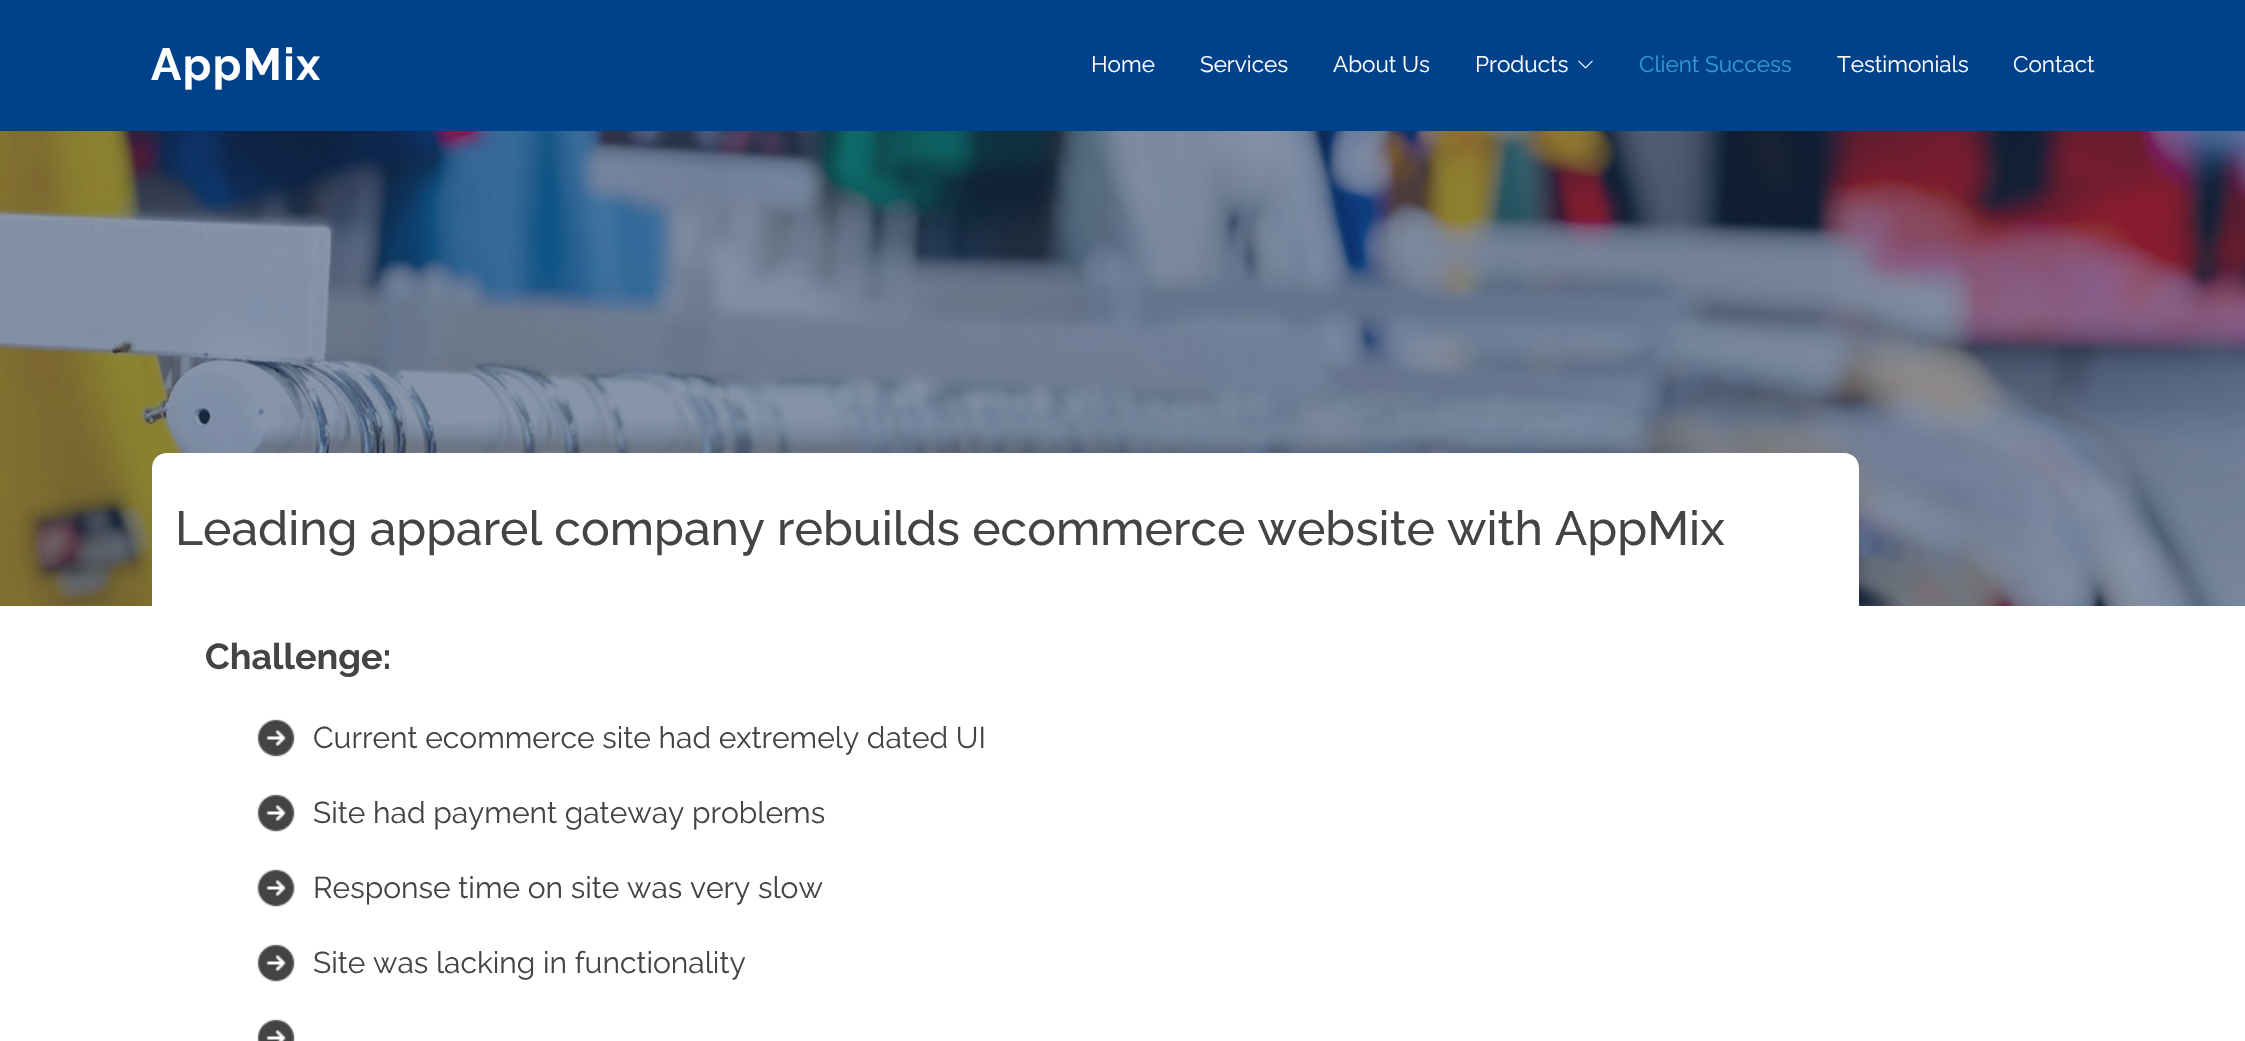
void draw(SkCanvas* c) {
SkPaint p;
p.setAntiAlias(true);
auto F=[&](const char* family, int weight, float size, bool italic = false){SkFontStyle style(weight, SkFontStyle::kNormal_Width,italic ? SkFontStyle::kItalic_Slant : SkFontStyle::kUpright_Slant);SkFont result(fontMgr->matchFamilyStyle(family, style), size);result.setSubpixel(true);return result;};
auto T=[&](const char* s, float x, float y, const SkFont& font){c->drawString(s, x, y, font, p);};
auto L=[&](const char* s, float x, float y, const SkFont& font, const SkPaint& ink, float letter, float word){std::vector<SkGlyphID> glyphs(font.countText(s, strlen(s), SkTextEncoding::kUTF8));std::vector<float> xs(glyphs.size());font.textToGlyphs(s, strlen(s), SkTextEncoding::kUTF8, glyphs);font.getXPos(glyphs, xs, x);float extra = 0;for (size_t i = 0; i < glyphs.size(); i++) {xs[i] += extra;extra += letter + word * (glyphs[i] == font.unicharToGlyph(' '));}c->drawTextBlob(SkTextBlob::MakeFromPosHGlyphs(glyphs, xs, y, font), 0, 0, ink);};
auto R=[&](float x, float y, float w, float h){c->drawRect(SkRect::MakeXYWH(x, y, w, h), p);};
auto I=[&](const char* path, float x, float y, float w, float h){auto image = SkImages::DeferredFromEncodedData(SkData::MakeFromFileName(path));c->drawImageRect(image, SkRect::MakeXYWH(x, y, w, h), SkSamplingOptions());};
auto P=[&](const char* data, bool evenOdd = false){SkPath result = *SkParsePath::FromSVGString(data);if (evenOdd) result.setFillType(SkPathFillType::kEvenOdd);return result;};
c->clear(0xffffffff);
p.setColor(0xff00428a);
R(0,0,2245,131);
auto f1 = F("Raleway",700,45);
p.setColor(0xffffffff);
L("AppMix",151,80,f1,p,1.5,0);
auto f2 = F("Raleway",400,22.5);
T("Home",1091,72,f2);
T("Services",1200,72,f2);
T("About Us",1333,72,f2);
T("Products",1475,72,f2);
I("1.png",1578,60,15,9);
p.setColor(0xff3498db);
T("Client Success",1639,72,f2);
p.setColor(0xffffffff);
T("Testimonials",1837,72,f2);
T("Contact",2013,72,f2);
I("2.png",0,131,2245,475);
c->drawPath(P("M167 453h1677c8.5 0 15 6.5 15 15v138h-1707v-138c0-8.5 6.5-15 15-15z"),p);
auto f3 = F("Raleway",500,48);
p.setColor(0xff444444);
T("Leading apparel company rebuilds ecommerce website with AppMix",175,545,f3);
auto f4 = F("Raleway",700,36);
T("Challenge:",205,669,f4);
I("3.png",257,719,38,38);
auto f5 = F("Raleway",400,30);
T("Current ecommerce site had extremely dated UI",313,748,f5);
I("3.png",257,794,38,38);
T("Site had payment gateway problems",313,823,f5);
I("3.png",257,869,38,38);
T("Response time on site was very slow",313,898,f5);
I("3.png",257,944,38,38);
T("Site was lacking in functionality",313,973,f5);
I("4.png",257,1019,38,22);
}
